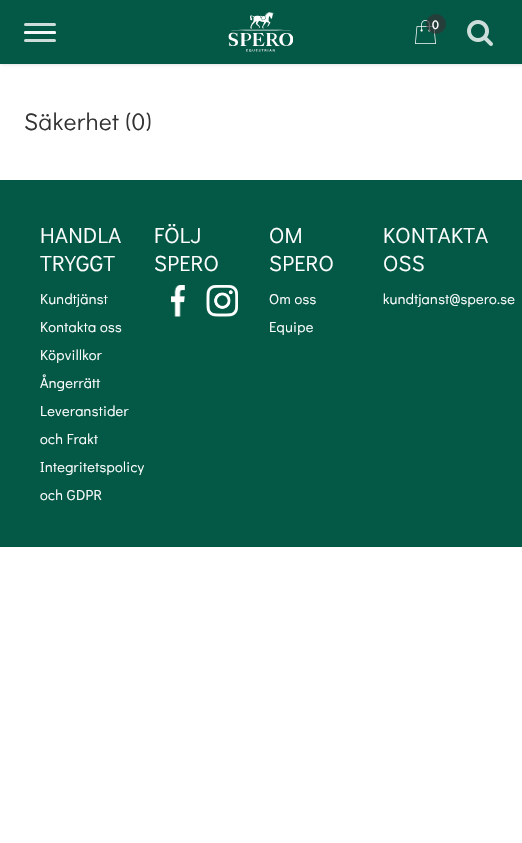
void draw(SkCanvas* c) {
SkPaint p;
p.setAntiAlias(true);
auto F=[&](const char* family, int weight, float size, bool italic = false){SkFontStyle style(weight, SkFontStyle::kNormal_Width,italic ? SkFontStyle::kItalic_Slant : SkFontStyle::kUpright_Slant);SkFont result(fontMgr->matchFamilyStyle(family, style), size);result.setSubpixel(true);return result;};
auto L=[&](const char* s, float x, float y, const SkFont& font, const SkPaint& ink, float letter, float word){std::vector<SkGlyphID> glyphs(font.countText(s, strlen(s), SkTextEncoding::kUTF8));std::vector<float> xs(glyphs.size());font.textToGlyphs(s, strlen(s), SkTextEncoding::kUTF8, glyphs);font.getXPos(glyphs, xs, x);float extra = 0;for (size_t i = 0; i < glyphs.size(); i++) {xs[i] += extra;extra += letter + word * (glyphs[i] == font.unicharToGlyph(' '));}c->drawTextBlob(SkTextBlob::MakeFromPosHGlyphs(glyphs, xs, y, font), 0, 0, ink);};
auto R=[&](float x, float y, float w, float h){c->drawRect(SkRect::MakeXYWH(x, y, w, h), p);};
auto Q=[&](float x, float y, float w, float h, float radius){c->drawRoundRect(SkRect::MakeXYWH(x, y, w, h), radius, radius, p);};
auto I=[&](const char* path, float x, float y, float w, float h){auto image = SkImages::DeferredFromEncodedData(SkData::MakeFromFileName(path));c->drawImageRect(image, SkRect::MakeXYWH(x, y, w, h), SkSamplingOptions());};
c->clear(0xffffffff);
p.setColor(0x1a000000);
p.setMaskFilter(SkMaskFilter::MakeBlur(kNormal_SkBlurStyle, 1.5));
c->drawRect(SkRect::MakeXYWH(1,1,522,64),p);
p.setMaskFilter(nullptr);
p.setColor(0xff035846);
R(0,0,522,64);
p.setColor(0xffcddeda);
Q(24,23,32,3,1.5);
Q(24,31,32,3,1.5);
p.setColor(0xccffffff);
Q(24,31,32,3,1.5);
p.setColor(0xffcddeda);
Q(24,39,32,3,1.5);
I("1.png",228,12,65,40);
I("2.png",415,20,21,24);
p.setColor(0xb3333333);
c->drawCircle(436,24,10,p);
auto f1 = F("Didact Gothic",700,12);
p.setColor(0xffffffff);
L("0",432,29,f1,p,.3,0);
I("3.png",467,20,26,26);
auto f2 = F("Didact Gothic",400,24);
p.setColor(0xff333333);
L("Säkerhet (0)",24,130,f2,p,.6,0);
p.setColor(0xff035846);
R(0,180,522,367);
auto f3 = F("Didact Gothic",400,22);
p.setColor(0xffffffff);
L("HANDLA",40,243,f3,p,.3,0);
L("TRYGGT",40,271,f3,p,.3,0);
auto f4 = F("Didact Gothic",400,14.5);
L("Kundtjänst",40,304,f4,p,.3,0);
L("Kontakta oss",40,332,f4,p,.3,0);
L("Köpvillkor",40,360,f4,p,.3,0);
L("Ångerrätt",40,388,f4,p,.3,0);
L("Leveranstider",40,416,f4,p,.3,0);
L("och Frakt",40,444,f4,p,.3,0);
L("Integritetspolicy",40,472,f4,p,.3,0);
L("och GDPR",40,500,f4,p,.3,0);
L("FÖLJ",154,243,f3,p,.3,0);
L("SPERO",154,271,f3,p,.3,0);
I("4.png",171,285,14,32);
I("5.png",206,285,32,32);
L("OM",269,243,f3,p,.3,0);
L("SPERO",269,271,f3,p,.3,0);
L("Om oss",269,304,f4,p,.3,0);
L("Equipe",269,332,f4,p,.3,0);
L("KONTAKTA",383,243,f3,p,.3,0);
L("OSS",383,271,f3,p,.3,0);
L("kundtjanst@spero.se",383,304,f4,p,.3,0);
}
